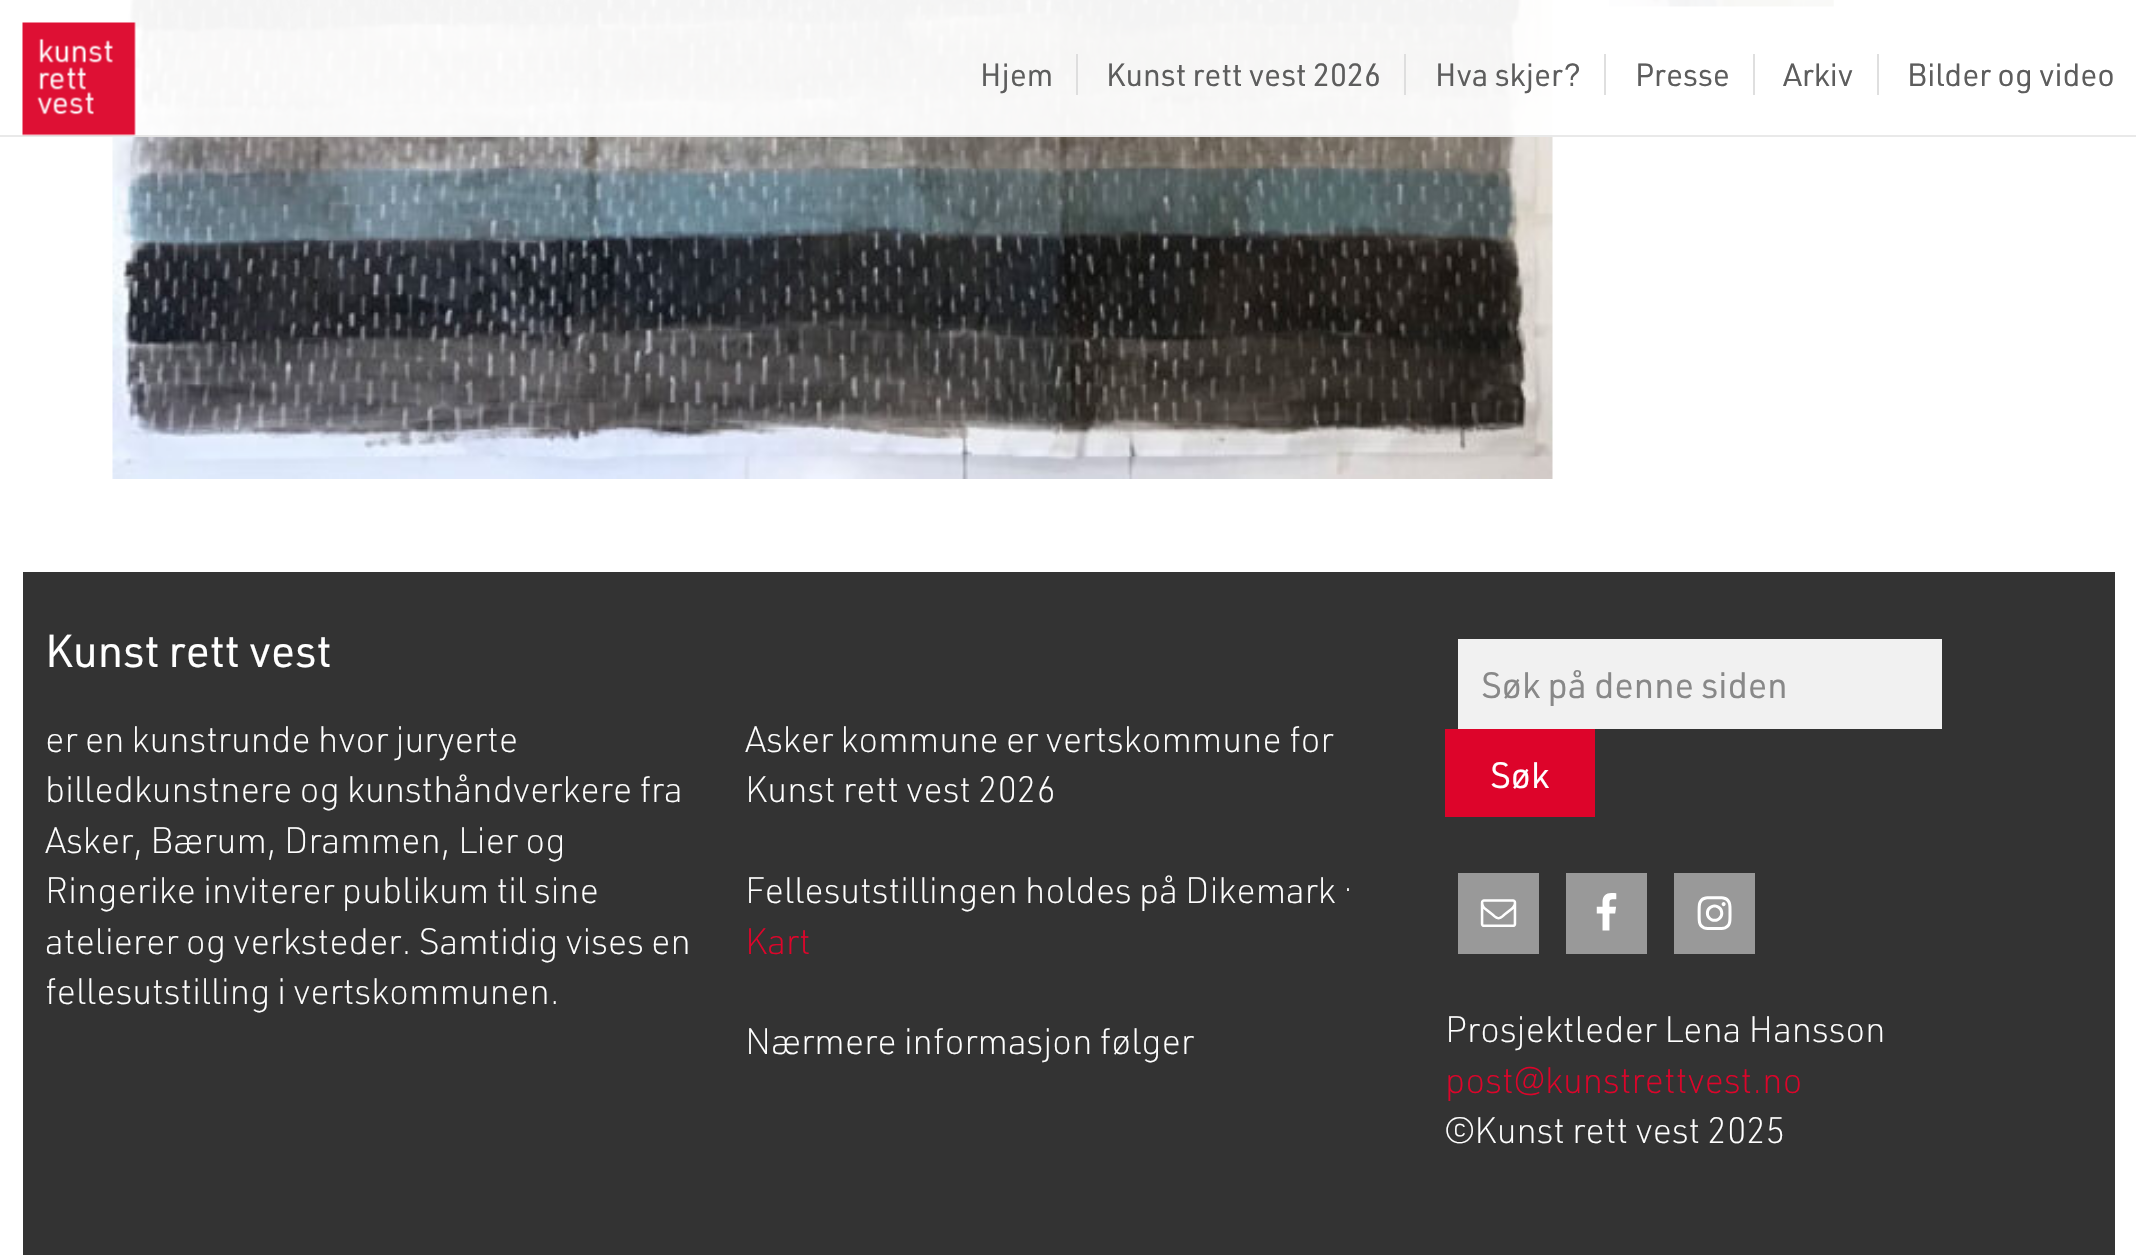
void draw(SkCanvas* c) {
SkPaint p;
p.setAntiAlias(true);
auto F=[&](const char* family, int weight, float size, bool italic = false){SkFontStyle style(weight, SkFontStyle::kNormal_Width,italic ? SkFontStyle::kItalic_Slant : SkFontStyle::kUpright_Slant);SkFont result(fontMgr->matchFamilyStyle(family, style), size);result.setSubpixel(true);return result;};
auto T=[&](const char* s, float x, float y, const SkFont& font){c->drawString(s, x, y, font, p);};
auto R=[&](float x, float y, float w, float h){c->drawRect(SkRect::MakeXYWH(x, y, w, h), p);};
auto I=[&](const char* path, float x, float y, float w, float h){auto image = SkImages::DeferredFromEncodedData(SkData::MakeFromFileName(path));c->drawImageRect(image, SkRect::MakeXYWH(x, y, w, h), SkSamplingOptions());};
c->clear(0xffffffff);
I("1.png",112,0,1441,479);
I("2.png",1608,0,226,7);
p.setColor(0xf2ffffff);
R(112,0,1722,135);
p.setColor(0xf2e8e8e8);
R(0,135,2136,2);
I("3.png",22,22,114,114);
p.setColor(0xffdedede);
R(1076,54,2,41);
auto f1 = F("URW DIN",400,31.5);
p.setColor(0xff5d5d5d);
T("Hjem",980,86,f1);
p.setColor(0xffdedede);
R(1404,54,2,41);
p.setColor(0xff5d5d5d);
T("Kunst rett vest 2026",1106,86,f1);
p.setColor(0xffdfdfdf);
R(1604,54,2,41);
p.setColor(0xff5d5d5d);
T("Hva skjer?",1435,86,f1);
p.setColor(0xffdfdfdf);
R(1753,54,2,41);
p.setColor(0xff5d5d5d);
T("Presse",1635,86,f1);
p.setColor(0xffdfdfdf);
R(1877,54,2,41);
p.setColor(0xff5d5d5d);
T("Arkiv",1783,86,f1);
T("Bilder og video",1907,86,f1);
p.setColor(0xff333333);
R(23,572,2092,683);
auto f2 = F("URW DIN",400,45);
p.setColor(0xffffffff);
T("Kunst rett vest",45,667,f2);
auto f3 = F("URW DIN",300,36);
T("er en kunstrunde hvor juryerte",45,752,f3);
T("billedkunstnere og kunsthåndverkere fra",45,802,f3);
T("Asker, Bærum, Drammen, Lier og",45,853,f3);
T("Ringerike inviterer publikum til sine",45,903,f3);
T("atelierer og verksteder. Samtidig vises en",45,954,f3);
T("fellesutstilling i vertskommunen.",45,1004,f3);
T("Asker kommune er vertskommune for",745,752,f3);
T("Kunst rett vest 2026",745,802,f3);
T("Fellesutstillingen holdes på Dikemark ·",745,903,f3);
p.setColor(0xffdd042a);
T("Kart",745,954,f3);
p.setColor(0xffffffff);
T("Nærmere informasjon følger",745,1054,f3);
p.setColor(0xfff1f1f1);
R(1458,639,484,90);
auto f4 = F("URW DIN",400,36);
p.setColor(0xff888888);
T("Søk på denne siden",1481,698,f4);
p.setColor(0xffdd042a);
R(1445,729,150,88);
p.setColor(0xffffffff);
T("Søk",1490,788,f4);
p.setColor(0xff999999);
R(1458,873,81,81);
I("4.png",1480,899,37,28);
R(1566,873,81,81);
I("5.png",1596,893,21,38);
R(1674,873,81,81);
I("6.png",1697,896,35,34);
p.setColor(0xffffffff);
T("Prosjektleder Lena Hansson",1445,1042,f3);
p.setColor(0xffdd042a);
T("post@kunstrettvest.no",1445,1093,f3);
p.setColor(0xffffffff);
T("©Kunst rett vest 2025",1445,1143,f3);
}
